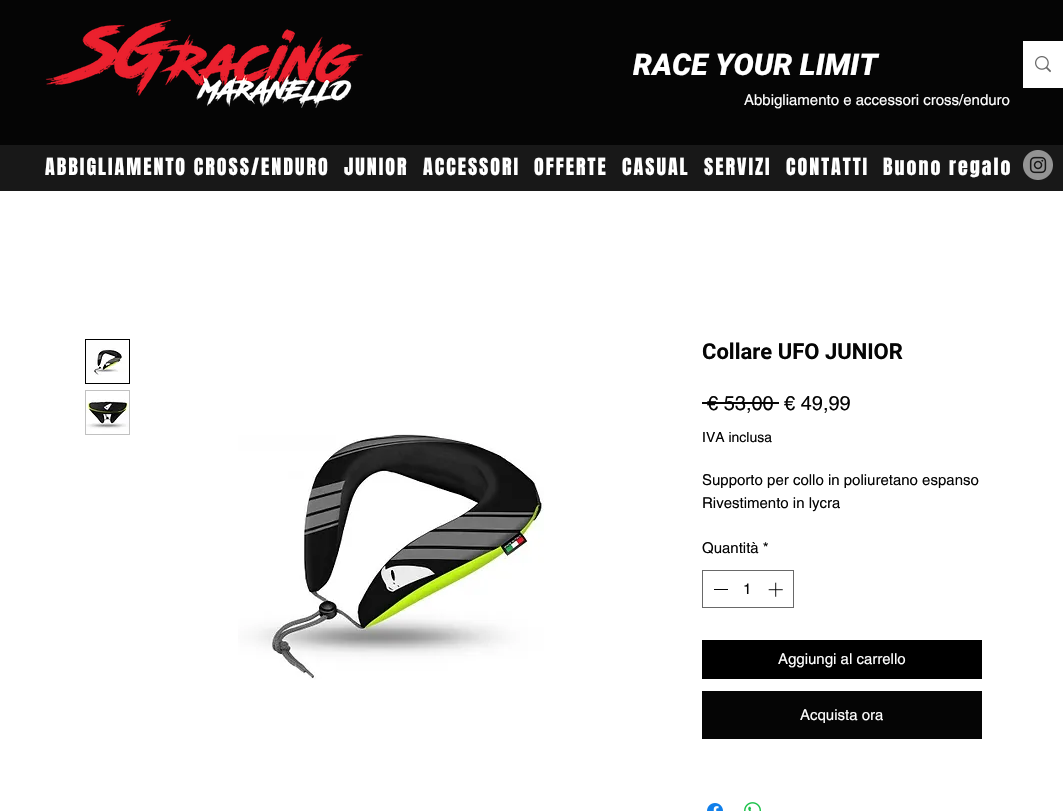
void draw(SkCanvas* c) {
SkPaint p;
p.setAntiAlias(true);
auto F=[&](const char* family, int weight, float size, bool italic = false){SkFontStyle style(weight, SkFontStyle::kNormal_Width,italic ? SkFontStyle::kItalic_Slant : SkFontStyle::kUpright_Slant);SkFont result(fontMgr->matchFamilyStyle(family, style), size);result.setSubpixel(true);return result;};
auto T=[&](const char* s, float x, float y, const SkFont& font){c->drawString(s, x, y, font, p);};
auto L=[&](const char* s, float x, float y, const SkFont& font, const SkPaint& ink, float letter, float word){std::vector<SkGlyphID> glyphs(font.countText(s, strlen(s), SkTextEncoding::kUTF8));std::vector<float> xs(glyphs.size());font.textToGlyphs(s, strlen(s), SkTextEncoding::kUTF8, glyphs);font.getXPos(glyphs, xs, x);float extra = 0;for (size_t i = 0; i < glyphs.size(); i++) {xs[i] += extra;extra += letter + word * (glyphs[i] == font.unicharToGlyph(' '));}c->drawTextBlob(SkTextBlob::MakeFromPosHGlyphs(glyphs, xs, y, font), 0, 0, ink);};
auto R=[&](float x, float y, float w, float h){c->drawRect(SkRect::MakeXYWH(x, y, w, h), p);};
auto I=[&](const char* path, float x, float y, float w, float h){auto image = SkImages::DeferredFromEncodedData(SkData::MakeFromFileName(path));c->drawImageRect(image, SkRect::MakeXYWH(x, y, w, h), SkSamplingOptions());};
c->clear(0xffffffff);
p.setColor(0xff050505);
R(0,0,1063,145);
I("1.png",45,19,318,89);
auto f1 = F("Roboto",900,30,true);
p.setColor(0xffffffff);
T("RACE YOUR LIMIT",633,75,f1);
auto f2 = F("helvetica",400,15);
T("Abbigliamento e accessori cross/enduro",744,105,f2);
R(1023,41,40,47);
I("2.png",1035,56,16,17);
p.setColor(0xff181818);
R(0,145,1063,46);
I("3.png",1023,150,30,30);
auto f3 = F("Anton",400,20);
p.setColor(0xffffffff);
L("ABBIGLIAMENTO CROSS/ENDURO",45,175,f3,p,2,0);
L("JUNIOR",344,175,f3,p,2,0);
L("ACCESSORI",423,175,f3,p,2,0);
L("OFFERTE",534,175,f3,p,2,0);
L("CASUAL",622,175,f3,p,2,0);
L("SERVIZI",704,175,f3,p,2,0);
L("CONTATTI",786,175,f3,p,2,0);
L("Buono regalo",883,175,f3,p,2,0);
p.setStroke(true);
p.setStrokeWidth(1);
p.setColor(0xff000000);
c->drawRect(SkRect::MakeXYWH(85.5,339.5,44,44),p);
I("4.png",86,340,43,43);
p.setStroke(false);
p.setColor(0xffc1c1c1);
R(85,390,45,45);
I("5.png",86,391,43,43);
I("6.png",238,434,306,246);
auto f4 = F("Roboto",700,22);
p.setColor(0xff050505);
T("Collare UFO JUNIOR",702,359,f4);
auto f5 = F("helvetica",400,20);
T("€ 53,00",707,410,f5);
R(702,402,77,2);
T("€ 49,99",784,410,f5);
auto f6 = F("helvetica",400,14);
T("IVA inclusa",702,442,f6);
T("Supporto per collo in poliuretano espanso",702,485,f2);
T("Rivestimento in lycra",702,508,f2);
T("Quantità *",702,553,f2);
p.setStroke(true);
p.setColor(0xff696969);
c->drawRect(SkRect::MakeXYWH(702.5,570.5,91,37),p);
p.setStroke(false);
p.setColor(0xff050505);
R(714,589,14,1);
T("1",743,594,f2);
I("7.png",768,582,15,15);
p.setColor(0xff000000);
R(702,640,280,39);
p.setColor(0xffffffff);
T("Aggiungi al carrello",778,664,f2);
p.setColor(0xff050505);
R(702,691,280,48);
p.setColor(0xffffffff);
T("Acquista ora",800,720,f2);
I("8.png",707,803,16,8);
I("9.png",744,802,17,9);
}
